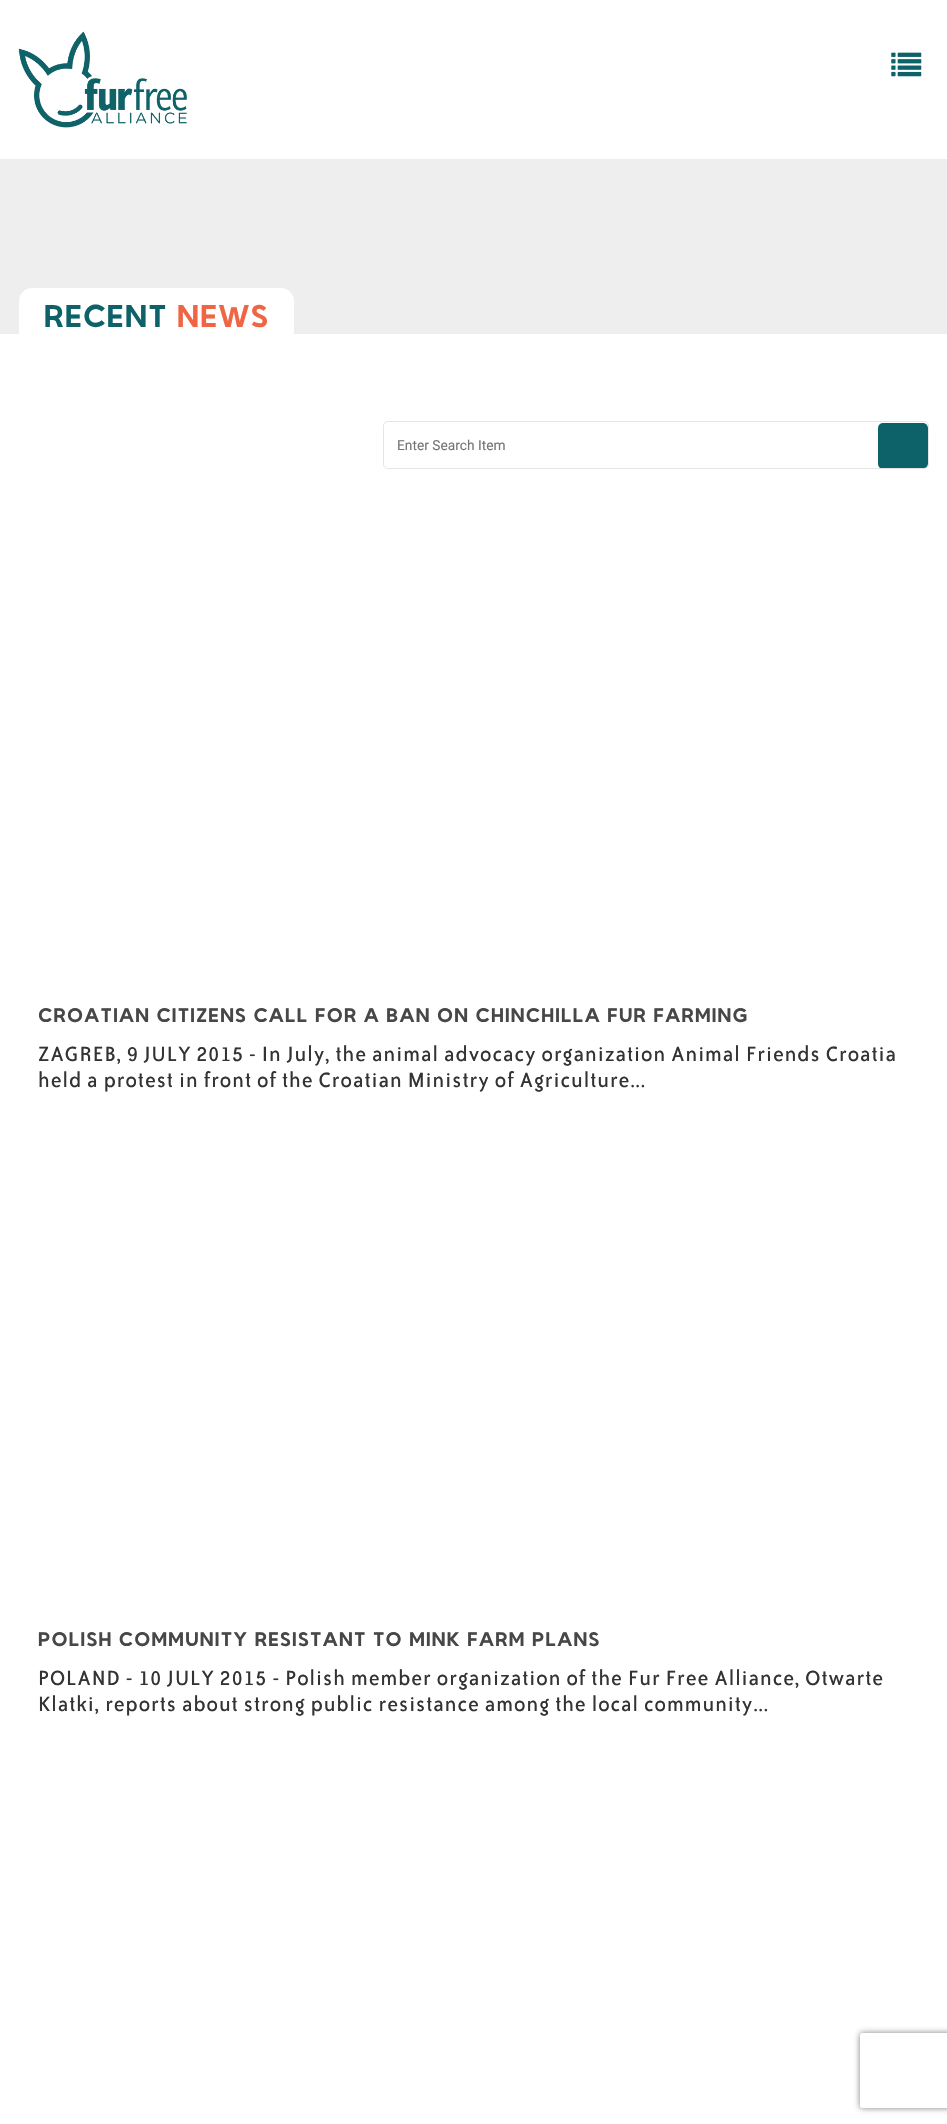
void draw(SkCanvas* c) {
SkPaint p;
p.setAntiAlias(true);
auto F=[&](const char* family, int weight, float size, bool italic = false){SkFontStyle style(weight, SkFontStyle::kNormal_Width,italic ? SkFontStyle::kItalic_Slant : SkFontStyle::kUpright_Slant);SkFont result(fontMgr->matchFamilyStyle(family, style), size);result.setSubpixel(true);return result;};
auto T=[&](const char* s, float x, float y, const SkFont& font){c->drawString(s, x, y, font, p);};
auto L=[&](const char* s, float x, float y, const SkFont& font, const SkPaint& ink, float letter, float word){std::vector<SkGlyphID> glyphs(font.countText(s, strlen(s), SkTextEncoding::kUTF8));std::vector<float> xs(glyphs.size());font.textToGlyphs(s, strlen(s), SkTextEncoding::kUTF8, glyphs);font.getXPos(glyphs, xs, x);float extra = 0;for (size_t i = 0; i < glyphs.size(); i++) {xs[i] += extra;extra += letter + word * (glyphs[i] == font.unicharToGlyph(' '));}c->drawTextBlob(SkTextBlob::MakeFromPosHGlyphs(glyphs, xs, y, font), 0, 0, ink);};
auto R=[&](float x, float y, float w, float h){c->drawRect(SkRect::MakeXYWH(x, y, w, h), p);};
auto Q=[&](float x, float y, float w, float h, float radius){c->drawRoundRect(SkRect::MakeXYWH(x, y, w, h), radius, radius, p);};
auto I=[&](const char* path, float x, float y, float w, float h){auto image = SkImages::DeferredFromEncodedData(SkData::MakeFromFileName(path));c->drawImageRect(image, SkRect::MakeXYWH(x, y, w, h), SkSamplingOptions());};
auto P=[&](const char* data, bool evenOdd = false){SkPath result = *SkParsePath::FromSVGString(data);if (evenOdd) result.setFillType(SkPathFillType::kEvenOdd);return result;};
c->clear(0xffffffff);
I("1.png",18,31,169,97);
I("2.png",891,52,31,25);
p.setColor(0xffeeeeee);
R(0,159,947,175);
p.setColor(0xffffffff);
c->drawPath(P("M32 288h249c7 0 13 6 13 13v47h-275v-47c0-7 6-13 13-13z"),p);
auto f1 = F("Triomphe",700,30);
p.setColor(0xff0d6168);
L("RECENT",44,327,f1,p,1.25,0);
p.setColor(0xfff06544);
L("NEWS",177,327,f1,p,1.25,0);
p.setStroke(true);
p.setStrokeWidth(1);
p.setColor(0xffe5e5e5);
c->drawRoundRect(SkRect::MakeXYWH(383.5,421.5,545,47),4.5,4.5,p);
p.setStroke(false);
p.setColor(0xffffffff);
c->drawPath(P("M388 423h458v45h-458c-2 0-4-2-4-4v-37c0-2 2-4 4-4z"),p);
auto f2 = F("Roboto",400,13.75);
p.setColor(0xff757575);
T("Enter Search Item",397,450,f2);
c->save();
c->clipPath(P("M388 423h536c2 0 4 2 4 4v37c0 2-2 4-4 4h-536c-2 0-4-2-4-4v-37c0-2 2-4 4-4z"),true);
p.setColor(0xff0d6168);
Q(878,423,50,46,5);
c->restore();
auto f3 = F("Triomphe",700,18.75);
p.setColor(0xff474747);
L("CROATIAN CITIZENS CALL FOR A BAN ON CHINCHILLA FUR FARMING",38,1022,f3,p,1.25,0);
auto f4 = F("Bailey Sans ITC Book",400,23.75);
p.setColor(0xff333333);
L("ZAGREB, 9 JULY 2015 - In July, the animal advocacy organization Animal Friends Croatia",38,1061,f4,p,.95,0);
L("held a protest in front of the Croatian Ministry of Agriculture...",38,1087,f4,p,.95,0);
p.setColor(0xff474747);
L("POLISH COMMUNITY RESISTANT TO MINK FARM PLANS",38,1646,f3,p,1.25,0);
p.setColor(0xff333333);
L("POLAND - 10 JULY 2015 - Polish member organization of the Fur Free Alliance, Otwarte",38,1685,f4,p,.95,0);
L("Klatki, reports about strong public resistance among the local community...",38,1711,f4,p,.95,0);
c->save();
c->clipPath(P("M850 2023h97v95h-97zm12.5 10h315c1.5 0 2.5 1 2.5 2.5v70c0 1.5-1 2.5-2.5 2.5h-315c-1.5 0-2.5-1-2.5-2.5v-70c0-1.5 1-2.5 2.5-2.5z",true),true);
p.setColor(0xff808080);
p.setMaskFilter(SkMaskFilter::MakeBlur(kNormal_SkBlurStyle, 3));
c->drawRoundRect(SkRect::MakeXYWH(860,2033,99,75),2.5,2.5,p);
p.setMaskFilter(nullptr);
c->restore();
}
